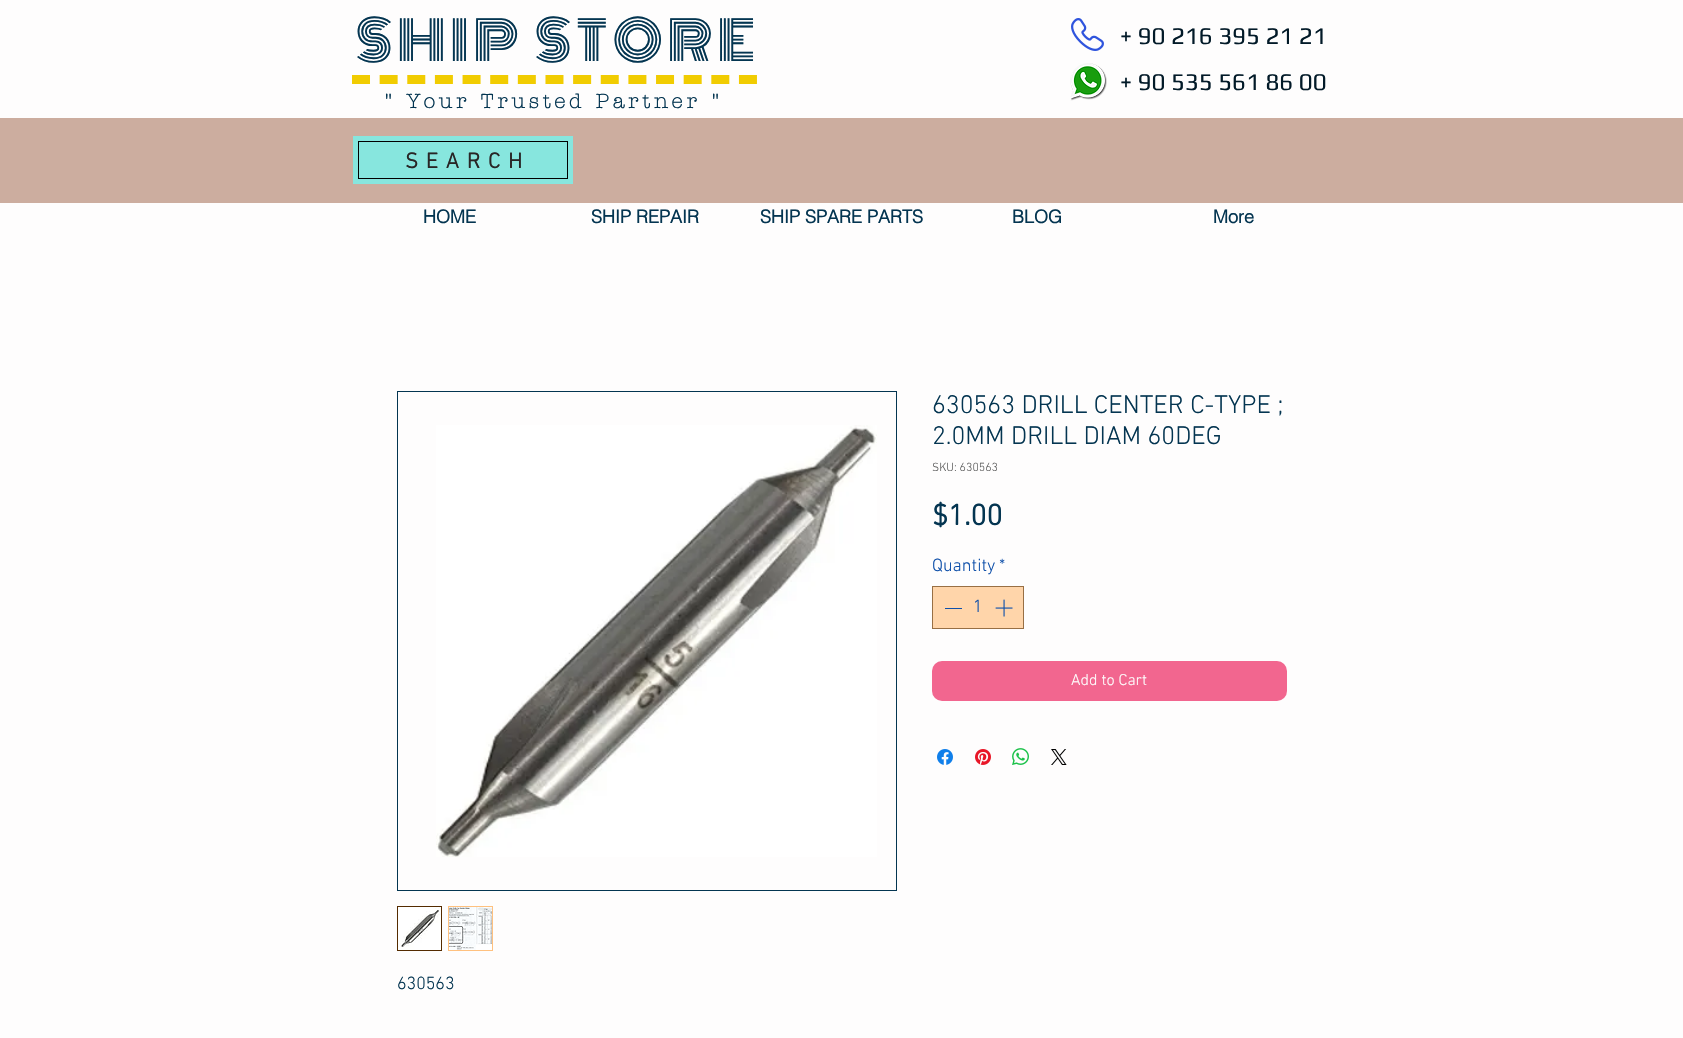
void draw(SkCanvas* c) {
SkPaint p;
p.setAntiAlias(true);
auto F=[&](const char* family, int weight, float size, bool italic = false){SkFontStyle style(weight, SkFontStyle::kNormal_Width,italic ? SkFontStyle::kItalic_Slant : SkFontStyle::kUpright_Slant);SkFont result(fontMgr->matchFamilyStyle(family, style), size);result.setSubpixel(true);return result;};
auto T=[&](const char* s, float x, float y, const SkFont& font){c->drawString(s, x, y, font, p);};
auto L=[&](const char* s, float x, float y, const SkFont& font, const SkPaint& ink, float letter, float word){std::vector<SkGlyphID> glyphs(font.countText(s, strlen(s), SkTextEncoding::kUTF8));std::vector<float> xs(glyphs.size());font.textToGlyphs(s, strlen(s), SkTextEncoding::kUTF8, glyphs);font.getXPos(glyphs, xs, x);float extra = 0;for (size_t i = 0; i < glyphs.size(); i++) {xs[i] += extra;extra += letter + word * (glyphs[i] == font.unicharToGlyph(' '));}c->drawTextBlob(SkTextBlob::MakeFromPosHGlyphs(glyphs, xs, y, font), 0, 0, ink);};
auto R=[&](float x, float y, float w, float h){c->drawRect(SkRect::MakeXYWH(x, y, w, h), p);};
auto Q=[&](float x, float y, float w, float h, float radius){c->drawRoundRect(SkRect::MakeXYWH(x, y, w, h), radius, radius, p);};
auto I=[&](const char* path, float x, float y, float w, float h){auto image = SkImages::DeferredFromEncodedData(SkData::MakeFromFileName(path));c->drawImageRect(image, SkRect::MakeXYWH(x, y, w, h), SkSamplingOptions());};
auto P=[&](const char* data, bool evenOdd = false){SkPath result = *SkParsePath::FromSVGString(data);if (evenOdd) result.setFillType(SkPathFillType::kEvenOdd);return result;};
c->clear(0xfffefdfd);
auto f1 = F("Monoton",400,53);
p.setColor(0xff043551);
L("SHIP STORE",356,61,f1,p,5.25,0);
I("1.png",1071,18,33,33);
auto f2 = F("Play",400,24);
p.setColor(0xff021a28);
T("+ 90 216 395 21 21",1120,44,f2);
p.setStroke(true);
p.setStrokeWidth(9);
p.setColor(0xfff1cc01);
p.setPathEffect(SkDashPathEffect::Make({{18,9.64f}}, 0));
c->drawPath(P("M352 79.5h405"),p);
p.setPathEffect(nullptr);
I("2.png",1070,63,37,38);
p.setStroke(false);
p.setColor(0xff021a28);
T("+ 90 535 561 86 00",1120,90,f2);
auto f3 = F("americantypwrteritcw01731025",700,20);
p.setColor(0xff043551);
L("\" Your Trusted Partner \"",384,108,f3,p,4,0);
p.setColor(0xffccad9f);
R(0,118,1683,85);
p.setColor(0xff87e6de);
R(353,136,220,48);
p.setStroke(true);
p.setStrokeWidth(1);
p.setColor(0xff000000);
c->drawRect(SkRect::MakeXYWH(358.5,141.5,209,37),p);
auto f4 = F("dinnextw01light",700,22);
p.setStroke(false);
p.setColor(0xff282626);
L("SEARCH",405,168,f4,p,7.75,0);
auto f5 = F("helvetica",700,18);
p.setColor(0xff043551);
T("HOME",423,223,f5);
T("SHIP REPAIR",591,223,f5);
T("SHIP SPARE PARTS",760,223,f5);
T("BLOG",1012,223,f5);
T("More",1213,223,f5);
auto f6 = F("dinnextw01light",300,26);
T("630563 DRILL CENTER C-TYPE ;",932,413,f6);
T("2.0MM DRILL DIAM 60DEG",932,444,f6);
auto f7 = F("dinnextw01light",300,12);
p.setColor(0xff5c5c5c);
T("SKU: 630563",932,471,f7);
auto f8 = F("dinnextw01light",700,30);
p.setColor(0xff043551);
T("$1.00",932,525,f8);
auto f9 = F("dinnextw01light",300,18);
p.setColor(0xff0f50aa);
T("Quantity",932,571,f9);
T("*",999,571,f9);
p.setColor(0xffffd5aa);
c->drawRect(SkRect::MakeXYWH(932.5,586.5,91,42),p);
p.setStroke(true);
p.setColor(0xff986f44);
c->drawRect(SkRect::MakeXYWH(932.5,586.5,91,42),p);
p.setStroke(false);
p.setColor(0xff0f50aa);
R(945,608,17,1);
T("1",973,612,f9);
I("3.png",995,599,18,18);
p.setColor(0xfff2668f);
Q(932,661,355,40,10);
auto f10 = F("dinnextw01light",300,16);
p.setColor(0xfffefdfd);
T("Add to Cart",1071,685,f10);
I("4.png",937,749,16,16);
I("5.png",975,749,16,16);
I("6.png",1012,748,17,17);
I("7.png",1051,749,16,16);
p.setStroke(true);
p.setColor(0xff043551);
c->drawRect(SkRect::MakeXYWH(397.5,391.5,499,499),p);
I("8.png",436,425,441,432);
p.setColor(0xff542b00);
c->drawRect(SkRect::MakeXYWH(397.5,906.5,44,44),p);
I("9.png",398,907,43,43);
p.setStroke(false);
p.setColor(0xffffc17f);
R(448,906,45,45);
I("10.png",449,907,43,43);
p.setColor(0xff043551);
T("630563",397,989,f9);
}
